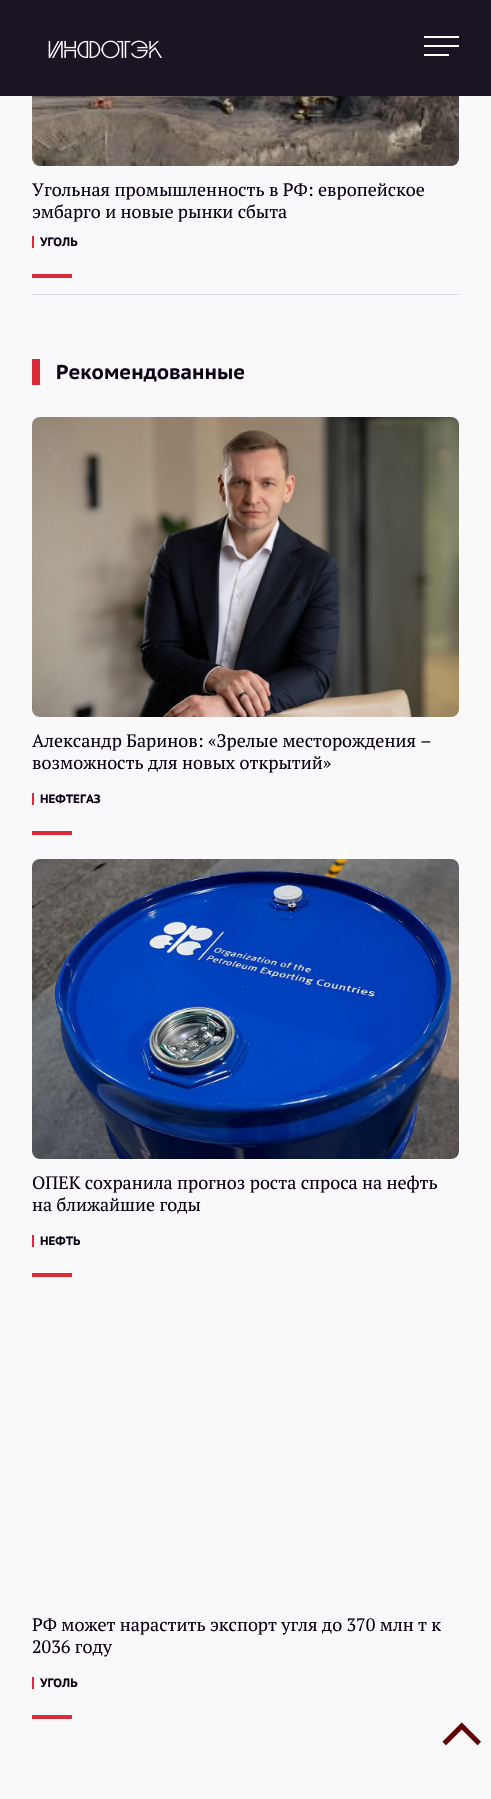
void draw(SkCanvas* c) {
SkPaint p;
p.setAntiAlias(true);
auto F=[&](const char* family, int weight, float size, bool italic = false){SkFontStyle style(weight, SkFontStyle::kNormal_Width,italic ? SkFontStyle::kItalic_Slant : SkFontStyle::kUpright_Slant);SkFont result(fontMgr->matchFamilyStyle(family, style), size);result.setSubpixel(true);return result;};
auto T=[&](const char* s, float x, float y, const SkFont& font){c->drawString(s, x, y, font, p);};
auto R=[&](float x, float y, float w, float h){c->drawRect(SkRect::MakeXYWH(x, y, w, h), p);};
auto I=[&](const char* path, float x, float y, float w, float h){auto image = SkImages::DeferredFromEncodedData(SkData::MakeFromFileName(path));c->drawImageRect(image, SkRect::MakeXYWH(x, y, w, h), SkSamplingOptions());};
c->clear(0xfff9f9fc);
p.setColor(0xff1a1423);
R(0,0,491,96);
I("1.png",48,40,114,19);
p.setColor(0xffffffff);
R(424,36,35,2);
R(424,45,35,2);
R(424,54,25,2);
p.setColor(0xffd7d7ea);
R(32,294,427,1);
I("2.png",32,96,427,70);
auto f1 = F("PT Serif",400,18);
p.setColor(0xff0b0014);
T("Угольная промышленность в РФ: европейское",32,196,f1);
T("эмбарго и новые рынки сбыта",32,218,f1);
p.setColor(0xffda2c38);
R(32,236,2,12);
auto f2 = F("PT Sans Caption",700,12);
p.setColor(0xff0b0014);
T("УГОЛЬ",40,246,f2);
p.setColor(0xffda2c38);
R(32,274,40,4);
R(32,359,8,26);
auto f3 = F("PT Sans Caption",700,20);
p.setColor(0xff0b0014);
T("Рекомендованные",56,379,f3);
I("3.png",32,417,427,300);
T("Александр Баринов: «Зрелые месторождения –",32,747,f1);
T("возможность для новых открытий»",32,769,f1);
p.setColor(0xffda2c38);
R(32,793,2,12);
p.setColor(0xff0b0014);
T("НЕФТЕГАЗ",40,803,f2);
p.setColor(0xffda2c38);
R(32,831,40,4);
I("4.png",32,859,427,300);
p.setColor(0xff0b0014);
T("ОПЕК сохранила прогноз роста спроса на нефть",32,1189,f1);
T("на ближайшие годы",32,1211,f1);
p.setColor(0xffda2c38);
R(32,1235,2,12);
p.setColor(0xff0b0014);
T("НЕФТЬ",40,1245,f2);
p.setColor(0xffda2c38);
R(32,1273,40,4);
p.setColor(0xff0b0014);
T("РФ может нарастить экспорт угля до 370 млн т к",32,1631,f1);
T("2036 году",32,1653,f1);
p.setColor(0xffda2c38);
R(32,1677,2,12);
p.setColor(0xff0b0014);
T("УГОЛЬ",40,1687,f2);
p.setColor(0xffda2c38);
R(32,1715,40,4);
auto f4 = F("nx",400,25);
p.setColor(0xff630005);
c->save();
c->rotate(180,481,1724);
T("с",481,1724,f4);
c->restore();
}
